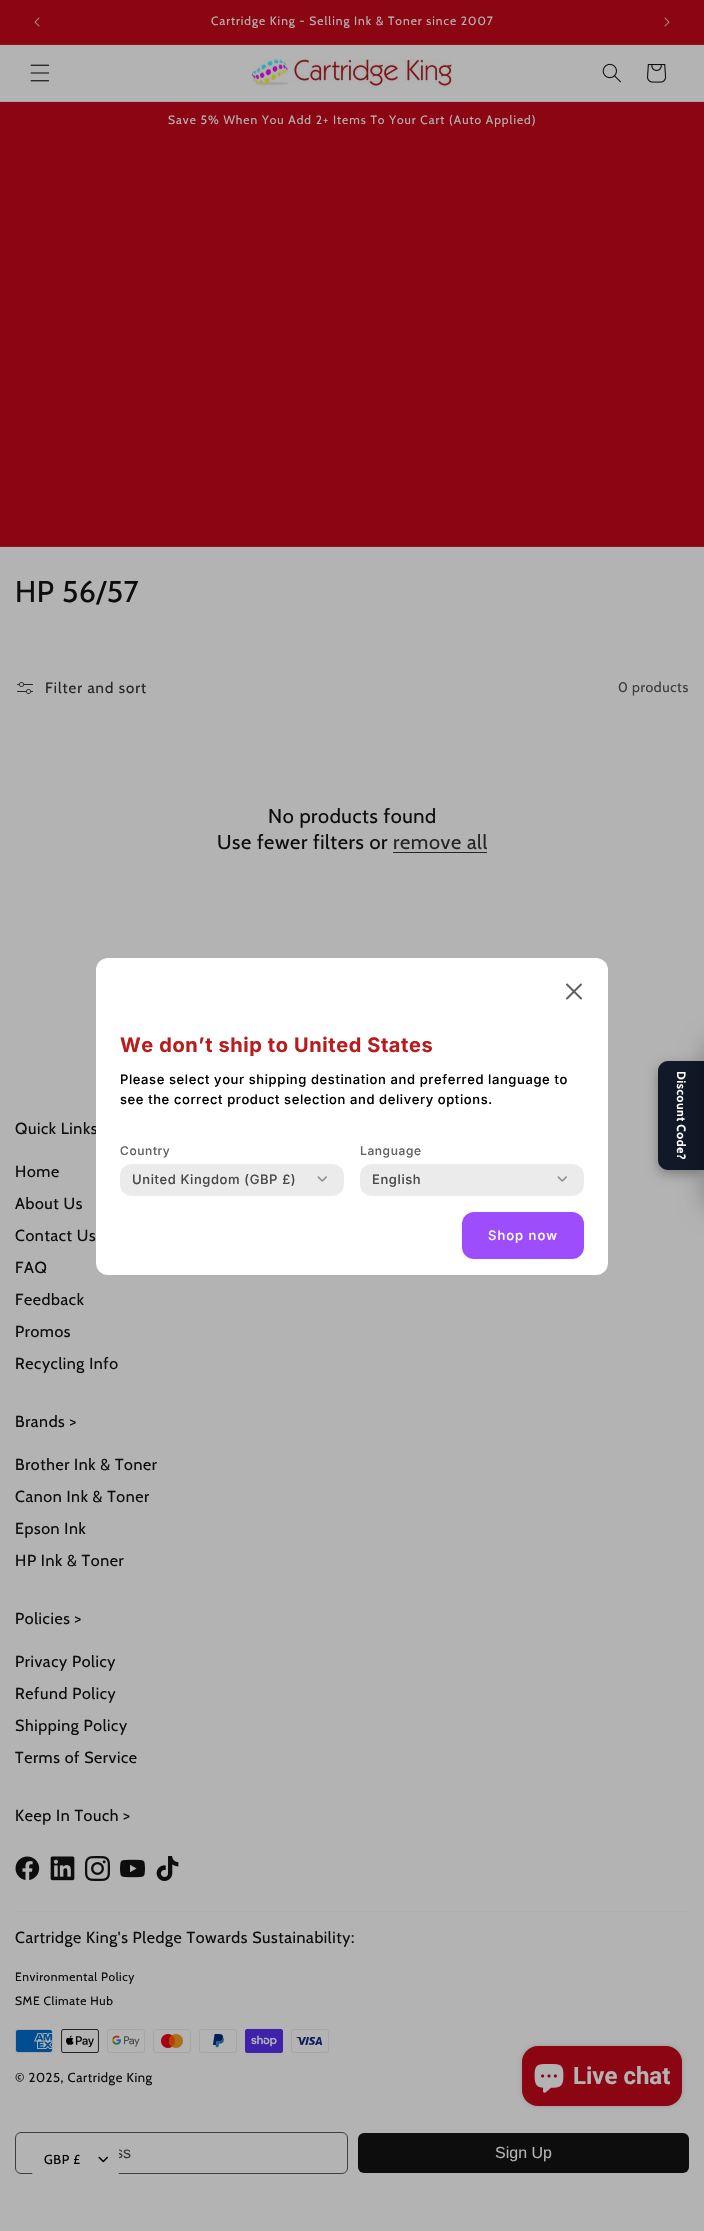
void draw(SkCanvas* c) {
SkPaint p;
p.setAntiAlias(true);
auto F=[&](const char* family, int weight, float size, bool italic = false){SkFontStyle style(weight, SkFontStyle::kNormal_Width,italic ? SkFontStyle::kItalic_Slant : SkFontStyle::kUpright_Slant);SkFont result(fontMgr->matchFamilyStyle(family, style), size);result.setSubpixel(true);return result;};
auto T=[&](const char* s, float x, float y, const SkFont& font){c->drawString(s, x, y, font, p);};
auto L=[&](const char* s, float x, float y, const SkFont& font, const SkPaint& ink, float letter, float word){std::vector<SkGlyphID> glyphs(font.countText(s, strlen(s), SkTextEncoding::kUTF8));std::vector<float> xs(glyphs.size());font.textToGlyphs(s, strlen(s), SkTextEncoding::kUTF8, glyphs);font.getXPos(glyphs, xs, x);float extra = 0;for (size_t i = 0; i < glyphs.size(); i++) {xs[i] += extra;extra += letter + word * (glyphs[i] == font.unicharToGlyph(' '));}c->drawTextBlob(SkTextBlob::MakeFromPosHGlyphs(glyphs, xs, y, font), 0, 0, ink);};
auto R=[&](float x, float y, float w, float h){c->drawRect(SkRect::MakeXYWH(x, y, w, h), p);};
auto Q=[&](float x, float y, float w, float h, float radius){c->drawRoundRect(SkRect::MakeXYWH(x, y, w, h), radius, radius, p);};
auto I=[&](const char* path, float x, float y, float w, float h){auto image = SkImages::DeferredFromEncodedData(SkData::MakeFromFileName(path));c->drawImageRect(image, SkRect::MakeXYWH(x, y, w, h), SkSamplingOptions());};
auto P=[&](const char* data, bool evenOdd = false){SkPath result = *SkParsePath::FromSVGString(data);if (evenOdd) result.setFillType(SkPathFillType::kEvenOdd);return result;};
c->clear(0xffb3b3b3);
p.setColor(0xff8b0612);
R(0,0,704,44);
p.setColor(0xff8e141f);
R(0,44,704,1);
I("1.png",34,17,6,10);
auto f1 = F("Cabin",400,12);
p.setColor(0xffb3b3b3);
L("Cartridge King - Selling Ink & Toner since 2007",211,25,f1,p,1,0);
I("2.png",664,17,6,10);
p.setColor(0xffa5a5a5);
R(0,101,704,1);
I("3.png",30,64,20,18);
I("4.png",252,59,200,29);
I("5.png",602,63,19,20);
I("6.png",647,64,20,19);
p.setColor(0xff8b0612);
R(0,102,704,444);
p.setColor(0xff8e141f);
R(0,546,704,1);
p.setColor(0xffb3b3b3);
L("Save 5% When You Add 2+ Items To Your Cart (Auto Applied)",168,124,f1,p,1,0);
auto f2 = F("Cabin",400,30);
p.setColor(0xff0d0d0d);
L("HP 56/57",15,602,f2,p,.6,0);
I("7.png",17,682,16,12);
auto f3 = F("Cabin",400,15);
p.setColor(0xff262626);
L("Filter and sort",45,693,f3,p,1,0);
auto f4 = F("Cabin",400,14);
p.setColor(0xff3e3e3e);
L("0 products",618,692,f4,p,.6,0);
auto f5 = F("Cabin",400,20);
p.setColor(0xff0d0d0d);
L("No products found",268,823,f5,p,.6,0);
L("Use fewer filters or",217,849,f5,p,.6,0);
p.setColor(0xff262626);
L("remove all",393,849,f5,p,.6,0);
R(393,852,94,1);
auto f6 = F("Cabin",400,16);
p.setColor(0xff0d0d0d);
L("Quick Links",15,1134,f6,p,.6,0);
p.setColor(0xffffffff);
Q(96,958,512,317,12);
I("8.png",566,983,16,17);
auto f7 = F("Inter",700,20);
p.setColor(0xffb81c1c);
L("We don’t ship to United States",120,1052,f7,p,.6,0);
auto f8 = F("Inter",500,13);
p.setColor(0xff000000);
L("Please select your shipping destination and preferred language to",120,1084,f8,p,.6,0);
L("see the correct product selection and delivery options.",120,1104,f8,p,.6,0);
auto f9 = F("Inter",500,12);
p.setColor(0xff615f5f);
L("Country",120,1155,f9,p,.6,0);
p.setColor(0xffebebeb);
Q(120,1164,224,32,12);
p.setColor(0xff484848);
L("United Kingdom (GBP £)",132,1184,f8,p,.6,0);
I("9.png",317,1176,10,6);
p.setColor(0xff615f5f);
L("Language",360,1155,f9,p,.6,0);
p.setColor(0xffebebeb);
Q(360,1164,224,32,12);
p.setColor(0xff484848);
L("English",372,1184,f8,p,.6,0);
I("9.png",557,1176,10,6);
p.setColor(0xff9d4dfc);
Q(462,1212,122,47,12);
p.setColor(0xffffffff);
L("Shop now",488,1240,f8,p,1,0);
p.setColor(0x4d000000);
p.setMaskFilter(SkMaskFilter::MakeBlur(kNormal_SkBlurStyle, 6));
c->drawRoundRect(SkRect::MakeXYWH(658,1065,46,109),10,10,p);
p.setMaskFilter(nullptr);
p.setColor(0xff111827);
c->drawPath(P("M668 1061h36v109h-36c-5.5 0-10-4.5-10-10v-89c0-5.5 4.5-10 10-10z"),p);
p.setColor(0x47000000);
p.setMaskFilter(SkMaskFilter::MakeBlur(kNormal_SkBlurStyle, 12));
c->drawRoundRect(SkRect::MakeXYWH(704,1043,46,165),10,10,p);
p.setMaskFilter(nullptr);
p.setColor(0xffafafaf);
R(15,1911,674,1);
p.setColor(0xff0d0d0d);
L("Home",15,1177,f6,p,.6,0);
L("About Us",15,1209,f6,p,.6,0);
L("Contact Us",15,1241,f6,p,.6,0);
L("FAQ",15,1273,f6,p,.6,0);
L("Feedback",15,1305,f6,p,.6,0);
L("Promos",15,1337,f6,p,.6,0);
L("Recycling Info",15,1369,f6,p,.6,0);
L("Brands >",15,1427,f6,p,.6,0);
L("Brother Ink & Toner",15,1470,f6,p,.6,0);
L("Canon Ink & Toner",15,1502,f6,p,.6,0);
L("Epson Ink",15,1534,f6,p,.6,0);
L("HP Ink & Toner",15,1566,f6,p,.6,0);
L("Policies >",15,1624,f6,p,.6,0);
L("Privacy Policy",15,1667,f6,p,.6,0);
L("Refund Policy",15,1699,f6,p,.6,0);
L("Shipping Policy",15,1731,f6,p,.6,0);
L("Terms of Service",15,1763,f6,p,.6,0);
L("Keep In Touch >",15,1821,f6,p,.6,0);
I("10.png",15,1856,25,24);
I("11.png",50,1856,25,25);
I("12.png",85,1856,25,25);
I("13.png",120,1859,25,19);
I("14.png",156,1856,23,25);
L("Cartridge King's Pledge Towards Sustainability:",15,1943,f6,p,.6,0);
L("Environmental Policy",15,1981,f1,p,.6,0);
L("SME Climate Hub",15,2005,f1,p,.6,0);
I("15.png",15,2029,38,24);
I("16.png",61,2029,38,24);
I("17.png",107,2029,38,24);
I("18.png",153,2029,38,24);
I("19.png",199,2029,38,24);
I("20.png",245,2029,38,24);
I("21.png",291,2029,38,24);
auto f10 = F("Cabin",400,13);
L("© 2025, Cartridge King",15,2082,f10,p,.6,0);
p.setStroke(true);
p.setStrokeWidth(1);
p.setColor(0xff3e3e3e);
c->drawRoundRect(SkRect::MakeXYWH(15.5,2132.5,332,41),5.5,5.5,p);
auto f11 = F("Liberation Sans",400,16);
p.setStroke(false);
p.setColor(0xff383939);
T("ss",115,2158,f11);
p.setColor(0xff0d0d0d);
Q(358,2133,331,40,6);
p.setColor(0xffb3b3b3);
T("Sign Up",495,2158,f11);
p.setColor(0x26000000);
p.setMaskFilter(SkMaskFilter::MakeBlur(kNormal_SkBlurStyle, 2.5));
c->drawRoundRect(SkRect::MakeXYWH(522,2046,160,60),16,16,p);
p.setMaskFilter(nullptr);
p.setColor(0xff8b0612);
Q(522,2046,160,60,16);
I("22.png",534,2064,30,29);
auto f12 = F("Roboto",700,24);
p.setColor(0xffb3b3b3);
T("Live chat",573,2084,f12);
auto f13 = F("Cabin",700,12);
p.setColor(0xffffffff);
c->save();
c->rotate(90,677,1071);
L("Discount Code?",677,1071,f13,p,.6,-1);
c->restore();
p.setColor(0xffb3b3b3);
Q(32,2135,87,48,12);
p.setColor(0xff000000);
L("GBP £",44,2164,f10,p,.6,0);
I("23.png",98,2156,10,7);
}
